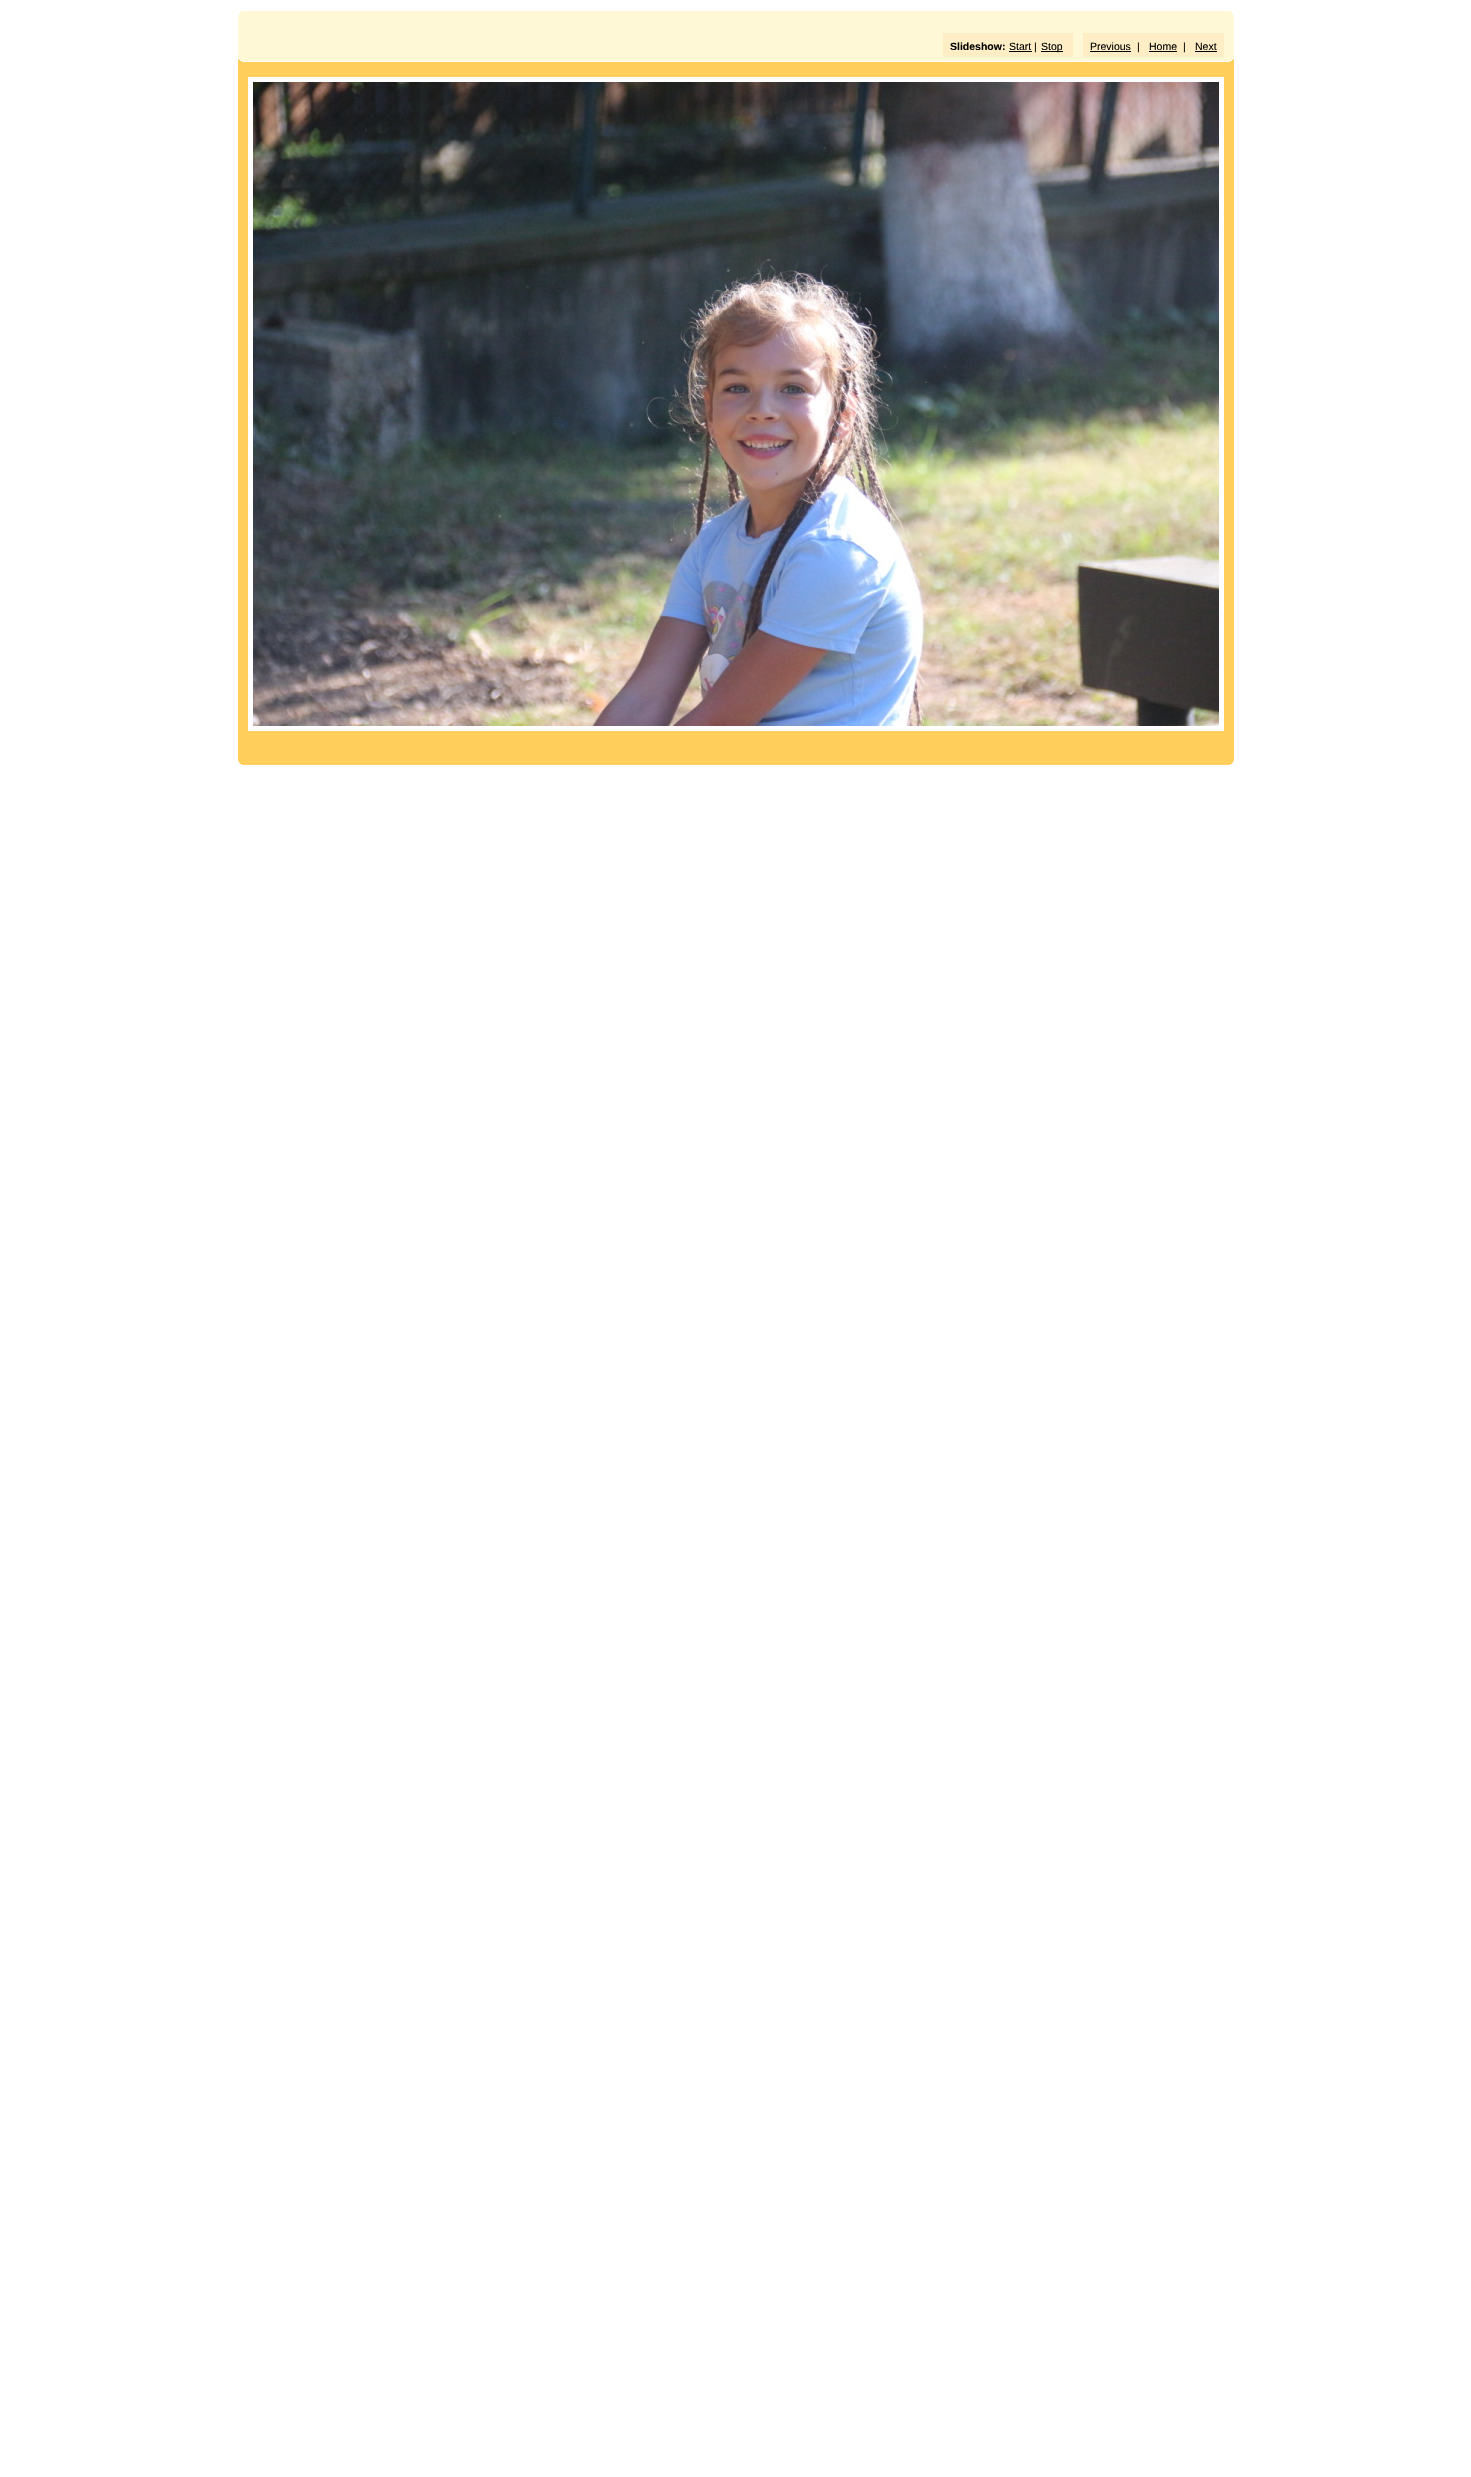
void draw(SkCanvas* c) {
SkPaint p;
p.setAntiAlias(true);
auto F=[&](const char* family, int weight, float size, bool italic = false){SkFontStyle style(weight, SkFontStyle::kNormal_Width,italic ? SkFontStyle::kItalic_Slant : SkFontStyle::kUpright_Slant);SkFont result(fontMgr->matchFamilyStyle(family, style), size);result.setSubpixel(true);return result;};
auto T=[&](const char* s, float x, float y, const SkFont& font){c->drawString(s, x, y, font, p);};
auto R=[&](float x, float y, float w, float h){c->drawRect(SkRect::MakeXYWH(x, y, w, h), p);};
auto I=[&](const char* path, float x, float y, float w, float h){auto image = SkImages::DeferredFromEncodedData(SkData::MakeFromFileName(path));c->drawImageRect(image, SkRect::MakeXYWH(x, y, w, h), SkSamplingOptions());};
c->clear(0xffffffff);
p.setColor(0xfffff8d6);
R(240,11,992,1);
p.setColor(0xffffffff);
R(1231,11,1,1);
R(240,11,1,1);
p.setColor(0xfffff8d6);
R(239,12,994,1);
p.setColor(0xffffffff);
R(1232,12,1,1);
R(239,12,1,1);
p.setColor(0xfffff8d6);
R(238,13,996,44);
p.setColor(0xffffffff);
R(1233,13,1,2);
R(238,13,1,2);
p.setColor(0xffffeec5);
R(943,33,63,24);
auto f1 = F("Liberation Sans",700,10.5);
p.setColor(0xff000000);
T("Slideshow:",950,50,f1);
p.setColor(0xffffeec5);
R(1006,33,3,26);
R(1009,33,64,24);
p.setColor(0xff000000);
R(1009,51,23,1);
auto f2 = F("Liberation Sans",400,10.5);
T("Start |",1009,50,f2);
R(1041,51,22,1);
T("Stop",1041,50,f2);
p.setColor(0xffffeec5);
R(1083,33,141,24);
p.setColor(0xff000000);
T("Previous",1090,50,f2);
R(1090,51,41,1);
T("|",1137,50,f2);
T("Home",1149,50,f2);
R(1149,51,28,1);
T("|",1183,50,f2);
T("Next",1195,50,f2);
R(1195,51,22,1);
p.setColor(0xfffff8d6);
R(238,57,996,2);
p.setColor(0xffffffff);
R(1233,57,1,2);
R(238,57,1,2);
p.setColor(0xffffce5b);
R(238,59,996,704);
p.setColor(0xfffff8d6);
R(239,59,994,1);
p.setColor(0xffffffff);
R(1232,59,1,1);
R(239,59,1,1);
p.setColor(0xfffff8d6);
R(240,60,992,1);
p.setColor(0xffffffff);
R(1231,60,1,1);
R(240,60,1,1);
R(242,61,988,1);
R(248,77,976,654);
I("1.png",253,82,966,644);
R(1233,761,1,2);
R(238,761,1,2);
p.setColor(0xffffce5b);
R(239,763,994,1);
p.setColor(0xffffffff);
R(1232,763,1,1);
R(239,763,1,1);
p.setColor(0xffffce5b);
R(240,764,992,1);
p.setColor(0xffffffff);
R(1230,764,2,1);
R(240,764,2,1);
}
